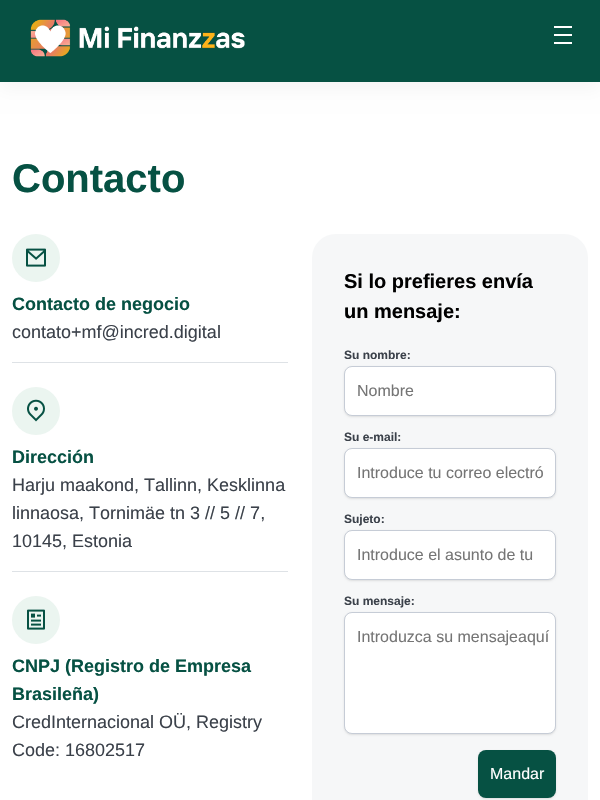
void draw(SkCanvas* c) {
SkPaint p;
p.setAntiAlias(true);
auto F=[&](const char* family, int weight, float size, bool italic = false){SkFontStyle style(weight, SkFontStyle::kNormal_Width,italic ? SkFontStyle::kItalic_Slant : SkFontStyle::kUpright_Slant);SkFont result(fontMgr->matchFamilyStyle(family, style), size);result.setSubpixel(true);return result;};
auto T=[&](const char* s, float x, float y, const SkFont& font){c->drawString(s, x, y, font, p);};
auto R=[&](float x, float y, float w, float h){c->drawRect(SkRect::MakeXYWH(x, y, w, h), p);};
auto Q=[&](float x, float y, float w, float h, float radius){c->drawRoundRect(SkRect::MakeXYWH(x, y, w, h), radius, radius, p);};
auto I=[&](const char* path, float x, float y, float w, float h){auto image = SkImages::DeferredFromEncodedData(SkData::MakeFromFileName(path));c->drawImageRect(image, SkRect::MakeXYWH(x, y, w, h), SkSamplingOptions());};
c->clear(0xffffffff);
p.setColor(0x0a000000);
p.setMaskFilter(SkMaskFilter::MakeBlur(kNormal_SkBlurStyle, 8.5));
c->drawRect(SkRect::MakeXYWH(0,7,600,82),p);
p.setMaskFilter(nullptr);
p.setColor(0xff065143);
R(0,0,600,82);
I("1.png",30,19,215,38);
p.setColor(0xffffffff);
R(554,26,18,2);
R(554,34,18,2);
R(554,42,18,2);
auto f1 = F("Liberation Sans",700,40);
p.setColor(0xff065143);
T("Contacto",12,192,f1);
p.setColor(0xffdee2e6);
R(12,362,276,1);
p.setColor(0xffebf5f0);
c->drawCircle(36,258,24,p);
I("2.png",26,248,20,19);
auto f2 = F("Liberation Sans",700,18);
p.setColor(0xff065143);
T("Contacto de negocio",12,310,f2);
auto f3 = F("Liberation Sans",400,18);
p.setColor(0xff3b414a);
T("contato+mf@incred.digital",12,338,f3);
p.setColor(0xffdee2e6);
R(12,571,276,1);
p.setColor(0xffebf5f0);
c->drawCircle(36,411,24,p);
I("3.png",27,399,18,23);
p.setColor(0xff065143);
T("Dirección",12,463,f2);
p.setColor(0xff3b414a);
T("Harju maakond, Tallinn, Kesklinna",12,491,f3);
T("linnaosa, Tornimäe tn 3 // 5 // 7,",12,519,f3);
T("10145, Estonia",12,547,f3);
p.setColor(0xffebf5f0);
c->drawCircle(36,620,24,p);
I("4.png",27,609,18,21);
p.setColor(0xff065143);
T("CNPJ (Registro de Empresa",12,672,f2);
T("Brasileña)",12,700,f2);
p.setColor(0xff3b414a);
T("CredInternacional OÜ, Registry",12,728,f3);
T("Code: 16802517",12,756,f3);
p.setColor(0xfff6f7f8);
Q(312,234,276,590,24);
auto f4 = F("Liberation Sans",700,20);
p.setColor(0xff000000);
T("Si lo prefieres envía",344,288,f4);
T("un mensaje:",344,318,f4);
auto f5 = F("Liberation Sans",700,12);
p.setColor(0xff3b414a);
T("Su nombre:",344,359,f5);
p.setColor(0x1a000000);
p.setMaskFilter(SkMaskFilter::MakeBlur(kNormal_SkBlurStyle, 1));
c->drawRoundRect(SkRect::MakeXYWH(344,367,212,50),8,8,p);
p.setMaskFilter(nullptr);
p.setColor(0xffffffff);
c->drawRoundRect(SkRect::MakeXYWH(344.5,366.5,211,49),7.5,7.5,p);
p.setStroke(true);
p.setStrokeWidth(1);
p.setColor(0xffc6ccd6);
c->drawRoundRect(SkRect::MakeXYWH(344.5,366.5,211,49),7.5,7.5,p);
auto f6 = F("Liberation Sans",400,16);
p.setStroke(false);
p.setColor(0xff757575);
T("Nombre",357,396,f6);
p.setColor(0xff3b414a);
T("Su e-mail:",344,441,f5);
p.setColor(0x1a000000);
p.setMaskFilter(SkMaskFilter::MakeBlur(kNormal_SkBlurStyle, 1));
c->drawRoundRect(SkRect::MakeXYWH(344,449,212,50),8,8,p);
p.setMaskFilter(nullptr);
p.setColor(0xffffffff);
c->drawRoundRect(SkRect::MakeXYWH(344.5,448.5,211,49),7.5,7.5,p);
p.setStroke(true);
p.setColor(0xffc6ccd6);
c->drawRoundRect(SkRect::MakeXYWH(344.5,448.5,211,49),7.5,7.5,p);
p.setStroke(false);
p.setColor(0xff757575);
T("Introduce tu correo electró",357,478,f6);
p.setColor(0xff3b414a);
T("Sujeto:",344,523,f5);
p.setColor(0x1a000000);
p.setMaskFilter(SkMaskFilter::MakeBlur(kNormal_SkBlurStyle, 1));
c->drawRoundRect(SkRect::MakeXYWH(344,531,212,50),8,8,p);
p.setMaskFilter(nullptr);
p.setColor(0xffffffff);
c->drawRoundRect(SkRect::MakeXYWH(344.5,530.5,211,49),7.5,7.5,p);
p.setStroke(true);
p.setColor(0xffc6ccd6);
c->drawRoundRect(SkRect::MakeXYWH(344.5,530.5,211,49),7.5,7.5,p);
p.setStroke(false);
p.setColor(0xff757575);
T("Introduce el asunto de tu",357,560,f6);
p.setColor(0xff3b414a);
T("Su mensaje:",344,605,f5);
p.setColor(0x1a000000);
p.setMaskFilter(SkMaskFilter::MakeBlur(kNormal_SkBlurStyle, 1));
c->drawRoundRect(SkRect::MakeXYWH(344,613,212,122),8,8,p);
p.setMaskFilter(nullptr);
p.setColor(0xffffffff);
c->drawRoundRect(SkRect::MakeXYWH(344.5,612.5,211,121),7.5,7.5,p);
p.setStroke(true);
p.setColor(0xffc6ccd6);
c->drawRoundRect(SkRect::MakeXYWH(344.5,612.5,211,121),7.5,7.5,p);
p.setStroke(false);
p.setColor(0xff757575);
T("Introduzca su mensajeaquí",357,642,f6);
p.setColor(0x1a000000);
p.setMaskFilter(SkMaskFilter::MakeBlur(kNormal_SkBlurStyle, 1));
c->drawRoundRect(SkRect::MakeXYWH(478,751,78,48),8,8,p);
p.setMaskFilter(nullptr);
p.setColor(0xff065143);
Q(478,750,78,48,8);
p.setColor(0xffffffff);
T("Mandar",490,779,f6);
}
